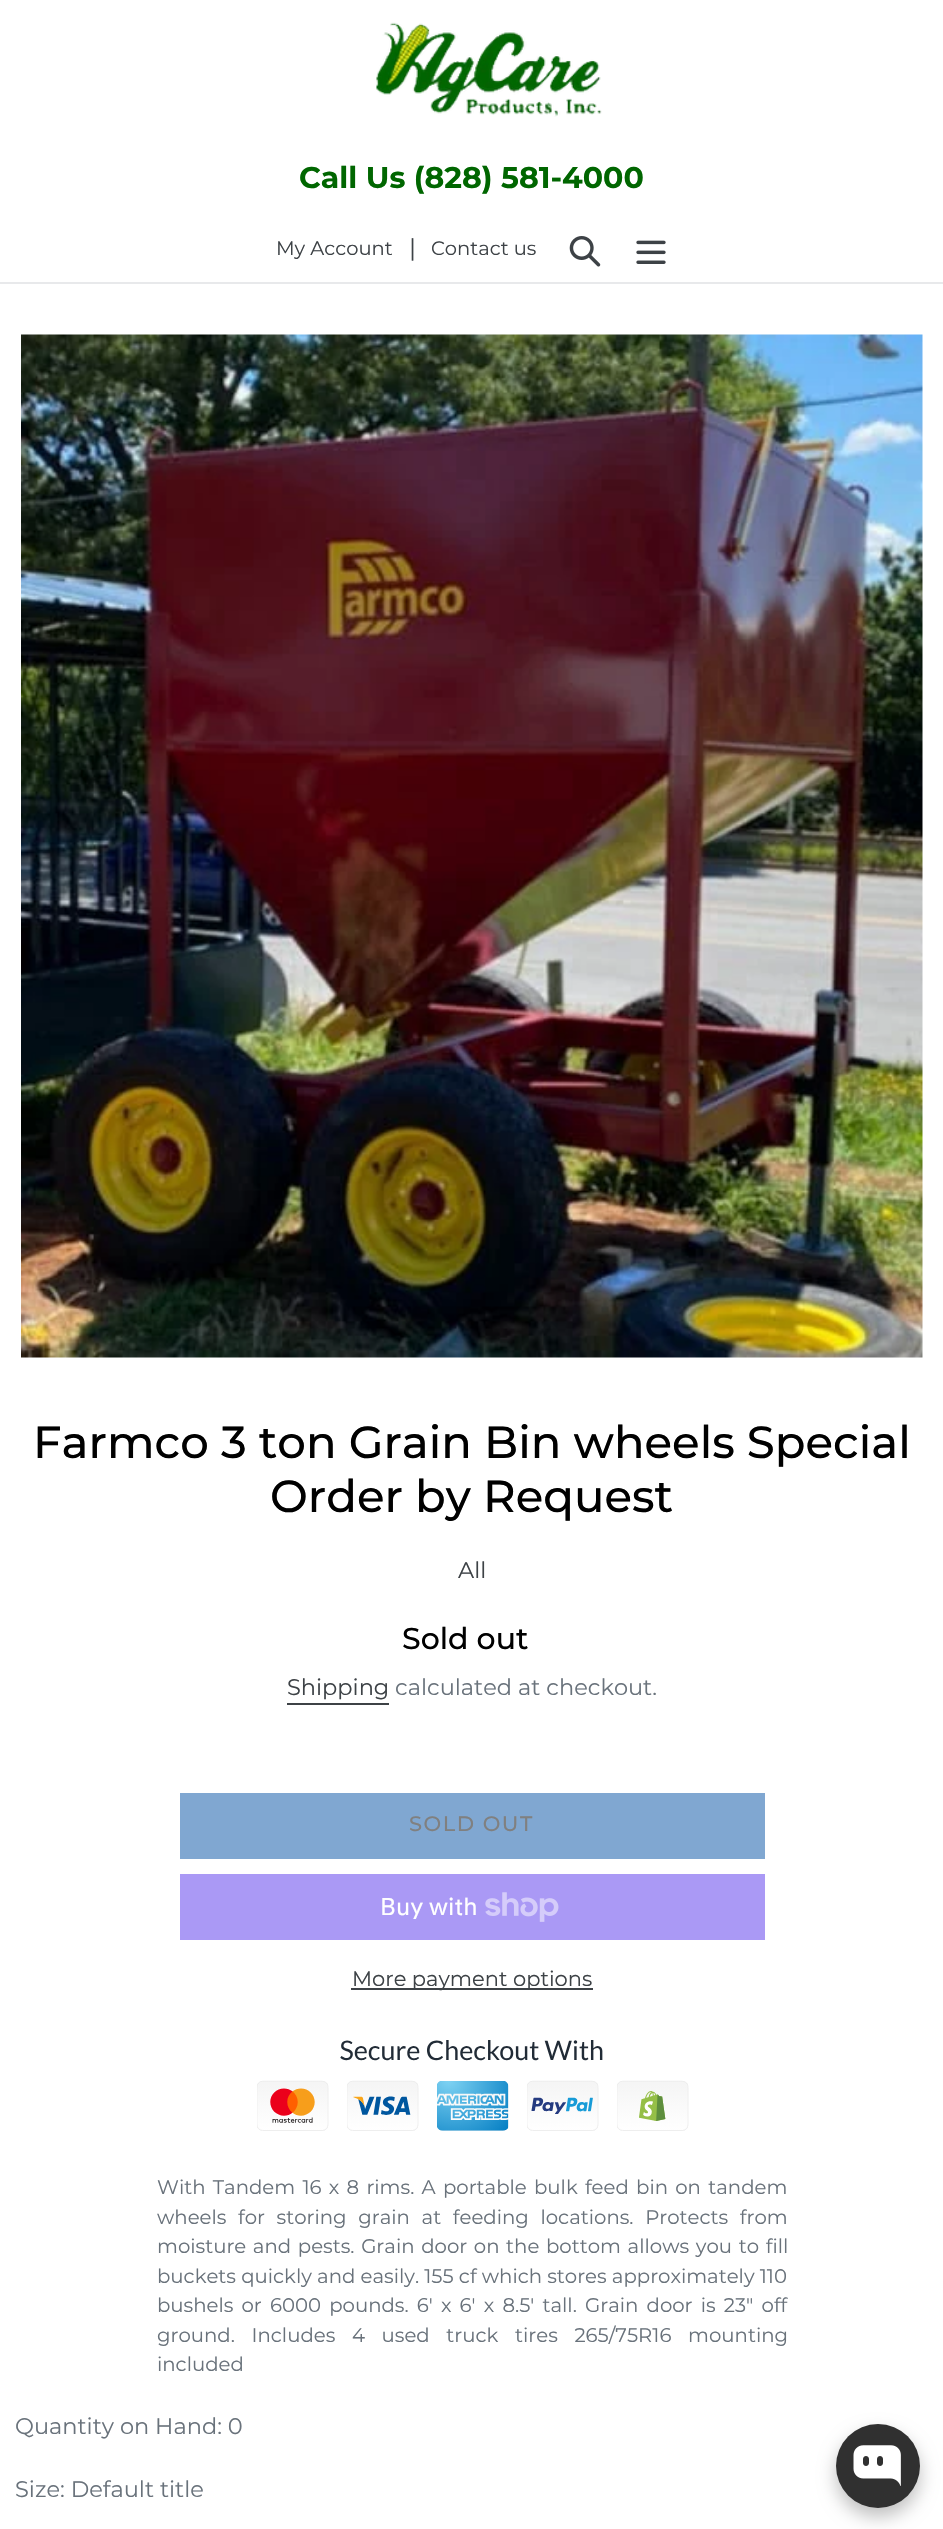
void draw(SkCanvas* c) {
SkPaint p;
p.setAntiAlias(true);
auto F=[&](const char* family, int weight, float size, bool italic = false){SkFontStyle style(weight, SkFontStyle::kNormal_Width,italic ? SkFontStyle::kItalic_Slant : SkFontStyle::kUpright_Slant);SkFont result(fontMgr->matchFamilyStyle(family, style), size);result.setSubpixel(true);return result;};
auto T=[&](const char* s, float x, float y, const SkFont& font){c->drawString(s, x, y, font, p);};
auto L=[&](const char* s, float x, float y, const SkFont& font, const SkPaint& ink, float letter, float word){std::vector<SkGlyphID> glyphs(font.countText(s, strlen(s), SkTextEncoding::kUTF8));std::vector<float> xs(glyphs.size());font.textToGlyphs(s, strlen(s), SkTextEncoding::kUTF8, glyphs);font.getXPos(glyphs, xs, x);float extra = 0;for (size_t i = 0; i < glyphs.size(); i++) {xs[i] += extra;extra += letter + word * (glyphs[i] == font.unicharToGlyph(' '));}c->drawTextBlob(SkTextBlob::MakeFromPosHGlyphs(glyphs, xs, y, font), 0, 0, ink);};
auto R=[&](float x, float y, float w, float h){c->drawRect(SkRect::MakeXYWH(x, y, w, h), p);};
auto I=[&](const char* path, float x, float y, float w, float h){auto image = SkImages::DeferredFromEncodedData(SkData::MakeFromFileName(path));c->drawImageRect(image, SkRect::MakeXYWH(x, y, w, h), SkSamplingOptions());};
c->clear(0xffffffff);
p.setColor(0xffe8e9eb);
R(0,282,943,2);
I("1.png",376,22,226,95);
auto f1 = F("Montserrat",700,30);
p.setColor(0xff006600);
T("Call Us (828) 581-4000",299,188,f1);
auto f2 = F("Montserrat",400,19.5);
p.setColor(0xff3d4246);
T("My Account",276,255,f2);
auto f3 = F("Montserrat",400,24);
T("|",409,256,f3);
T("Contact us",431,255,f2);
I("2.png",569,236,32,31);
I("3.png",636,240,30,24);
I("4.png",21,334,902,1024);
auto f4 = F("Montserrat",500,45);
p.setColor(0xff000000);
T("Farmco 3 ton Grain Bin wheels Special",33,1458,f4);
T("Order by Request",270,1512,f4);
auto f5 = F("Montserrat",400,22.5);
p.setColor(0xff3d4246);
T("All",458,1578,f5);
auto f6 = F("Montserrat",500,30);
p.setColor(0xff000000);
T("Sold out",402,1649,f6);
p.setColor(0xff3d4246);
T("Shipping",287,1695,f5);
R(287,1703,102,2);
p.setColor(0xff69727b);
T("calculated at checkout.",395,1695,f5);
p.setColor(0xff80a7d1);
R(180,1793,585,66);
auto f7 = F("Montserrat",500,21);
p.setColor(0xff808080);
L("SOLD OUT",409,1831,f7,p,1.5,0);
p.setColor(0xffaa99f5);
R(180,1874,585,66);
auto f8 = F("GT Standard",400,24);
p.setColor(0xffffffff);
T("Buy with",380,1915,f8);
I("5.png",485,1892,74,30);
p.setColor(0xff3d4246);
R(351,1988,242,2);
auto f9 = F("Montserrat",400,21);
T("More payment options",352,1986,f9);
I("6.png",257,2040,432,91);
auto f10 = F("Montserrat",400,19.7);
p.setColor(0xff69727b);
L("With Tandem 16 x 8 rims. A portable bulk feed bin on tandem",157,2194,f10,p,0,2.1);
L("wheels for storing grain at feeding locations. Protects from",157,2224,f10,p,0,6.5);
L("moisture and pests. Grain door on the bottom allows you to fill",157,2253,f10,p,0,1.5);
T("buckets quickly and easily. 155 cf which stores approximately 110",157,2283,f10);
L("bushels or 6000 pounds. 6' x 6' x 8.5' tall. Grain door is 23\" off",157,2312,f10,p,0,3);
L("ground. Includes 4 used truck tires 265/75R16 mounting",157,2342,f10,p,0,11.5);
T("included",157,2371,f10);
T("Quantity on Hand: 0",15,2434,f5);
T("Size: Default title",15,2497,f5);
p.setColor(0x40000000);
p.setMaskFilter(SkMaskFilter::MakeBlur(kNormal_SkBlurStyle, 9));
c->drawRoundRect(SkRect::MakeXYWH(836,2433,84,84),42,42,p);
p.setMaskFilter(nullptr);
p.setColor(0xff303030);
c->drawCircle(878,2466,42,p);
I("7.png",853,2445,48,41);
}
